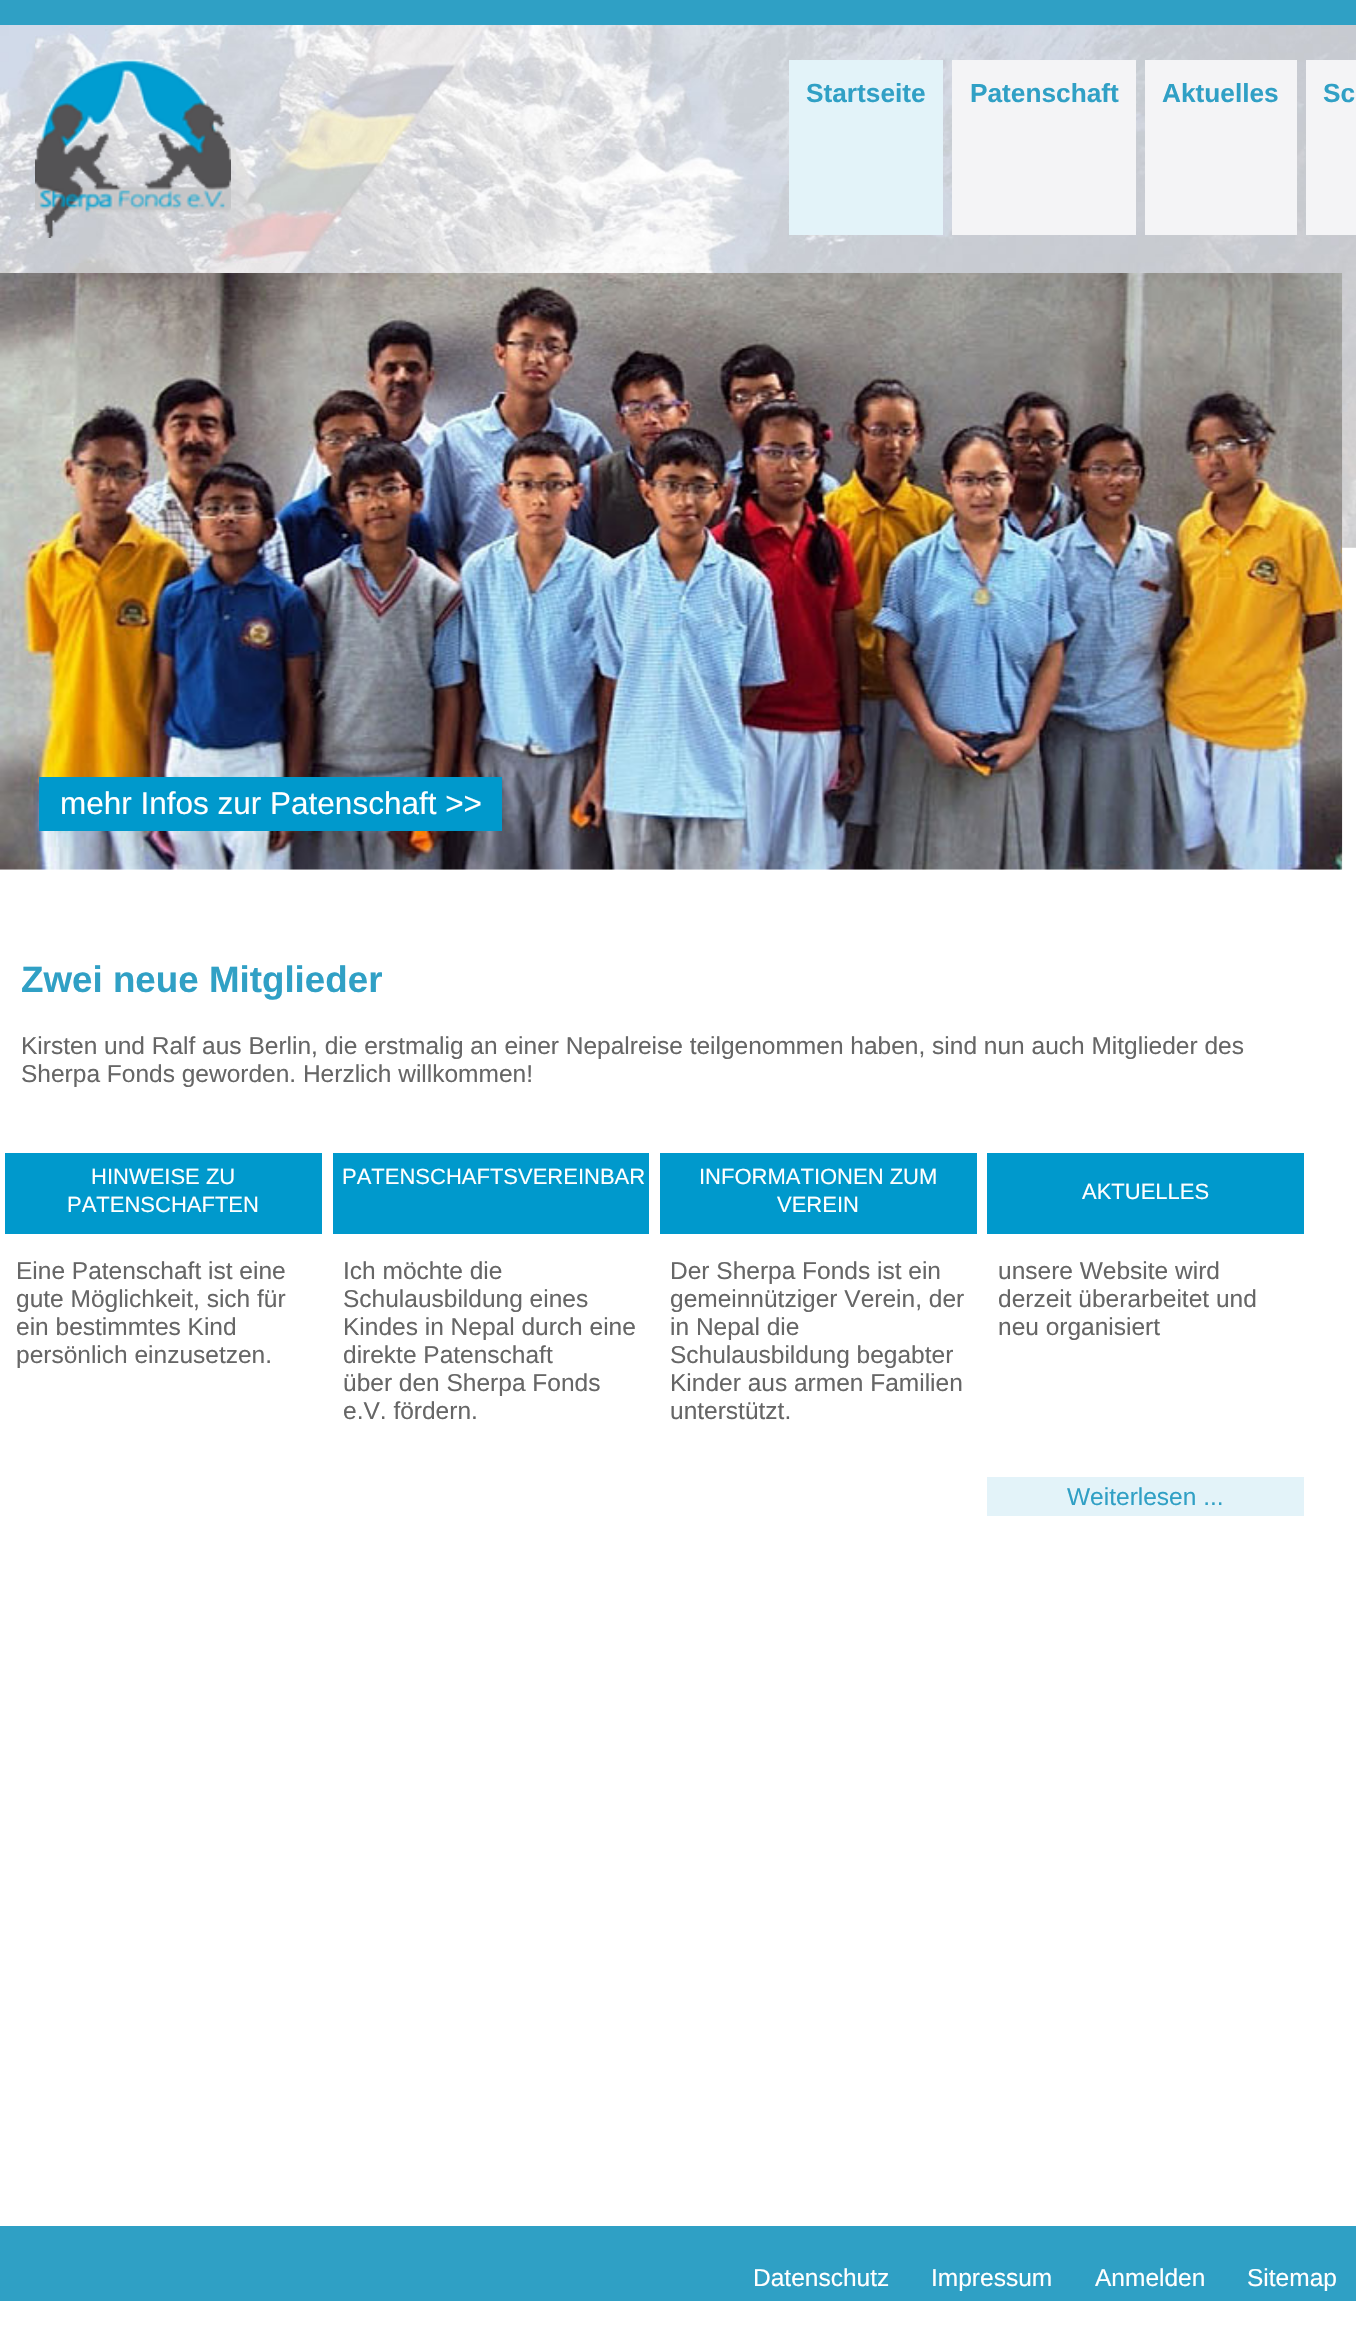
void draw(SkCanvas* c) {
SkPaint p;
p.setAntiAlias(true);
auto F=[&](const char* family, int weight, float size, bool italic = false){SkFontStyle style(weight, SkFontStyle::kNormal_Width,italic ? SkFontStyle::kItalic_Slant : SkFontStyle::kUpright_Slant);SkFont result(fontMgr->matchFamilyStyle(family, style), size);result.setSubpixel(true);return result;};
auto T=[&](const char* s, float x, float y, const SkFont& font){c->drawString(s, x, y, font, p);};
auto R=[&](float x, float y, float w, float h){c->drawRect(SkRect::MakeXYWH(x, y, w, h), p);};
auto I=[&](const char* path, float x, float y, float w, float h){auto image = SkImages::DeferredFromEncodedData(SkData::MakeFromFileName(path));c->drawImageRect(image, SkRect::MakeXYWH(x, y, w, h), SkSamplingOptions());};
c->clear(0xffffffff);
p.setColor(0xff2fa0c5);
R(0,0,1356,25);
I("1.png",0,25,1356,523);
I("2.png",35,59,196,179);
p.setColor(0xffe3f3f9);
R(789,60,154,175);
auto f1 = F("Liberation Sans",700,26.25);
p.setColor(0xff30a0c5);
T("Startseite",806,102,f1);
p.setColor(0xfff4f4f6);
R(952,60,184,175);
p.setColor(0xff30a0c5);
T("Patenschaft",970,102,f1);
p.setColor(0xfff4f4f6);
R(1145,60,152,175);
p.setColor(0xff30a0c5);
T("Aktuelles",1162,102,f1);
p.setColor(0xfff4f4f6);
R(1306,60,50,175);
p.setColor(0xff30a0c5);
T("Sc",1323,102,f1);
I("3.png",0,273,1343,597);
p.setColor(0xff0099cc);
R(39,777,463,54);
auto f2 = F("Liberation Sans",400,31.5);
p.setColor(0xffffffff);
T("mehr Infos zur Patenschaft >>",60,814,f2);
auto f3 = F("Liberation Sans",700,36.75);
p.setColor(0xff30a0c5);
T("Zwei neue Mitglieder",21,992,f3);
auto f4 = F("Liberation Sans",400,24.5);
p.setColor(0xff666666);
T("Kirsten und Ralf aus Berlin, die erstmalig an einer Nepalreise teilgenommen haben, sind nun auch Mitglieder des",21,1054,f4);
T("Sherpa Fonds geworden. Herzlich willkommen!",21,1082,f4);
p.setColor(0xff0099cc);
R(5,1153,317,81);
auto f5 = F("Liberation Sans",400,22);
p.setColor(0xffffffff);
T("HINWEISE ZU",91,1184,f5);
T("PATENSCHAFTEN",67,1212,f5);
p.setColor(0xff666666);
T("Eine Patenschaft ist eine",16,1279,f4);
T("gute Möglichkeit, sich für",16,1307,f4);
T("ein bestimmtes Kind",16,1335,f4);
T("persönlich einzusetzen.",16,1363,f4);
p.setColor(0xff0099cc);
R(333,1153,316,81);
p.setColor(0xffffffff);
T("PATENSCHAFTSVEREINBAR",342,1184,f5);
p.setColor(0xff666666);
T("Ich möchte die",343,1279,f4);
T("Schulausbildung eines",343,1307,f4);
T("Kindes in Nepal durch eine",343,1335,f4);
T("direkte Patenschaft",343,1363,f4);
T("über den Sherpa Fonds",343,1391,f4);
T("e.V. fördern.",343,1419,f4);
p.setColor(0xff0099cc);
R(660,1153,317,81);
p.setColor(0xffffffff);
T("INFORMATIONEN ZUM",699,1184,f5);
T("VEREIN",777,1212,f5);
p.setColor(0xff666666);
T("Der Sherpa Fonds ist ein",670,1279,f4);
T("gemeinnütziger Verein, der",670,1307,f4);
T("in Nepal die",670,1335,f4);
T("Schulausbildung begabter",670,1363,f4);
T("Kinder aus armen Familien",670,1391,f4);
T("unterstützt.",670,1419,f4);
p.setColor(0xff0099cc);
R(987,1153,317,81);
p.setColor(0xffffffff);
T("AKTUELLES",1082,1199,f5);
p.setColor(0xff666666);
T("unsere Website wird",998,1279,f4);
T("derzeit überarbeitet und",998,1307,f4);
T("neu organisiert",998,1335,f4);
p.setColor(0xffe3f3f9);
R(987,1477,317,39);
p.setColor(0xff30a0c5);
T("Weiterlesen ...",1067,1505,f4);
p.setColor(0xff2fa0c5);
R(0,2226,1356,75);
p.setColor(0xffffffff);
T("Datenschutz",753,2286,f4);
T("Impressum",931,2286,f4);
T("Anmelden",1095,2286,f4);
T("Sitemap",1247,2286,f4);
}
